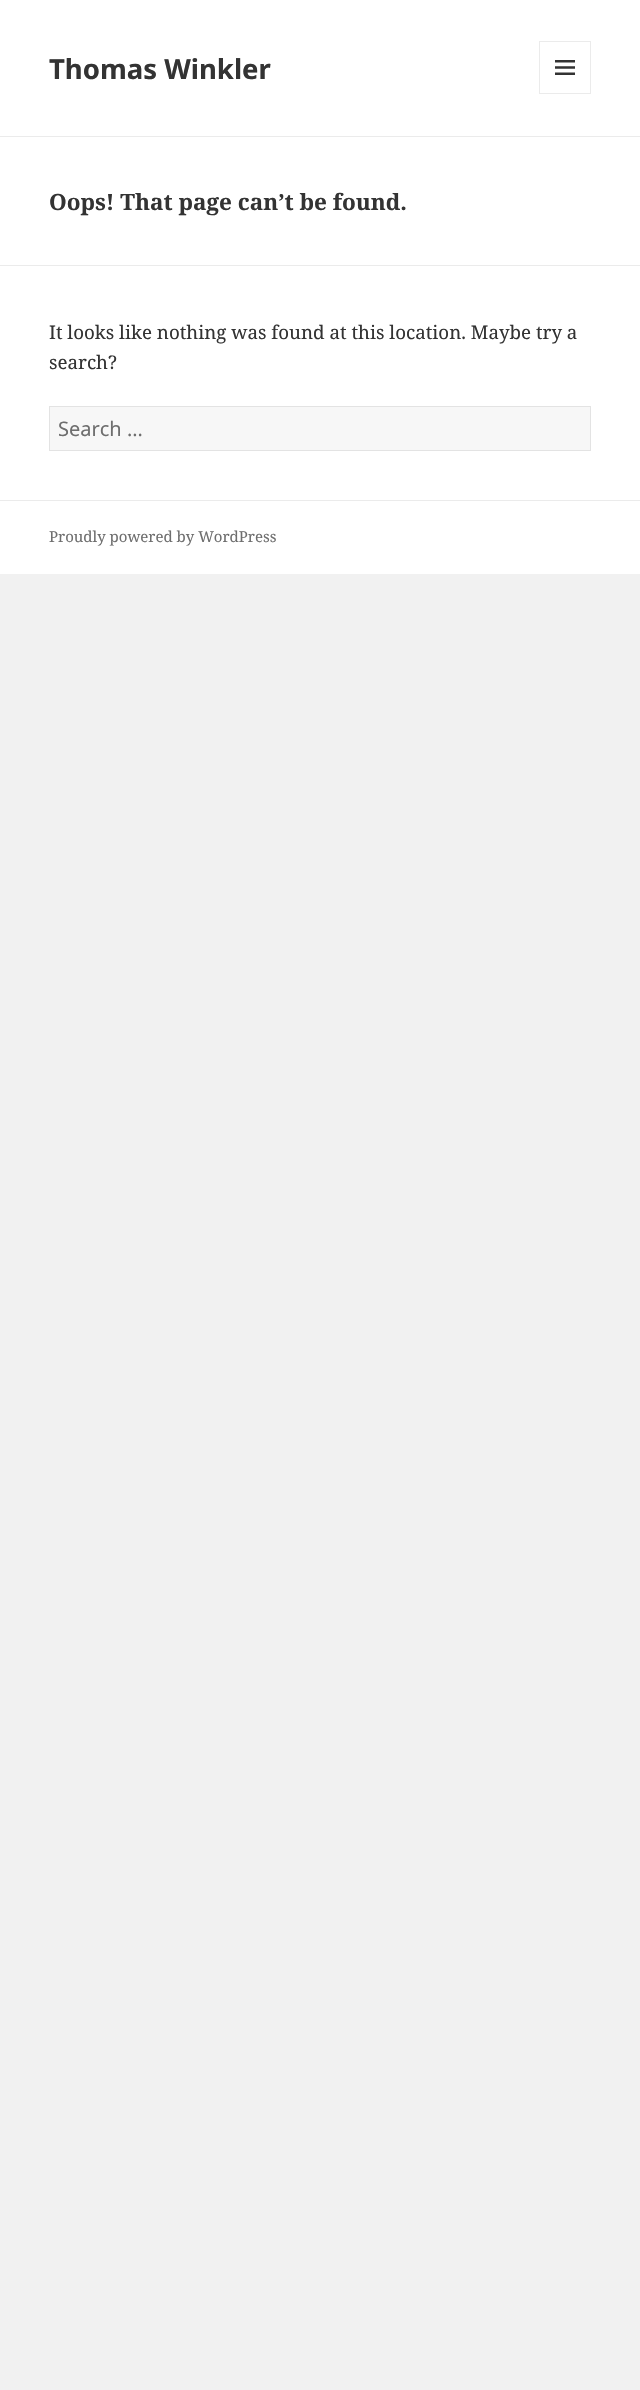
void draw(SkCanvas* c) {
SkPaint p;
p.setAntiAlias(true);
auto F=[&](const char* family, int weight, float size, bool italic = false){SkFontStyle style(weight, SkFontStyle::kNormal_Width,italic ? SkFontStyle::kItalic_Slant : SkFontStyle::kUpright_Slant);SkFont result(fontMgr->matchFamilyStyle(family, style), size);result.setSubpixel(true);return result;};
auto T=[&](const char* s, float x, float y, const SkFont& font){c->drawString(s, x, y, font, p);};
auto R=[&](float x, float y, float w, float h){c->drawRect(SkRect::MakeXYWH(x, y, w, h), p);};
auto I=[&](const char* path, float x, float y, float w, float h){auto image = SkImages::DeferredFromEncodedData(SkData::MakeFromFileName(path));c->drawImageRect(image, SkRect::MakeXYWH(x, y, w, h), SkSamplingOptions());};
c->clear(0xfff1f1f1);
p.setColor(0xffffffff);
R(0,0,640,265);
p.setColor(0xffebebeb);
R(0,136,640,1);
auto f1 = F("Noto Sans",700,27.5);
p.setColor(0xff333333);
T("Thomas Winkler",49,79,f1);
p.setStroke(true);
p.setStrokeWidth(1);
p.setColor(0xffebebeb);
c->drawRect(SkRect::MakeXYWH(539.5,41.5,51,52),p);
I("1.png",555,60,20,15);
p.setStroke(false);
R(0,265,640,1);
auto f2 = F("Noto Serif",700,22.5);
p.setColor(0xff333333);
T("Oops! That page can’t be found.",49,210,f2);
p.setColor(0xffffffff);
R(0,266,640,234);
auto f3 = F("Noto Serif",400,18.75);
p.setColor(0xff333333);
T("It looks like nothing was found at this location. Maybe try a",49,339,f3);
T("search?",49,369,f3);
p.setColor(0xfff7f7f7);
c->drawRect(SkRect::MakeXYWH(49.5,406.5,541,44),p);
p.setStroke(true);
p.setColor(0xffe3e3e3);
c->drawRect(SkRect::MakeXYWH(49.5,406.5,541,44),p);
auto f4 = F("Noto Sans",400,20);
p.setStroke(false);
p.setColor(0xff6e6e6e);
T("Search …",58,436,f4);
p.setColor(0xffffffff);
R(0,501,640,73);
p.setColor(0xffebebeb);
R(0,500,640,1);
auto f5 = F("Noto Serif",400,15);
p.setColor(0xff6e6e6e);
T("Proudly powered by WordPress",49,542,f5);
}
